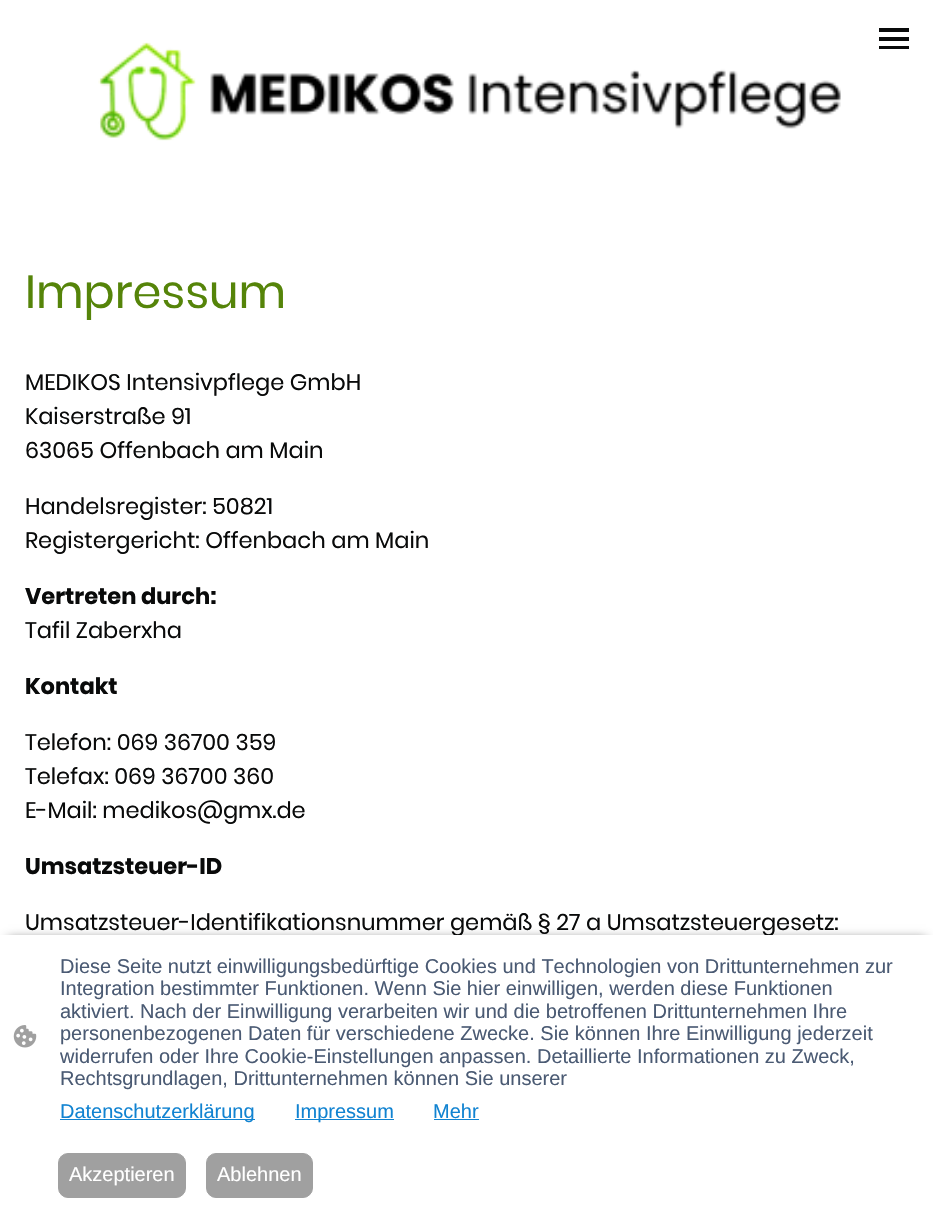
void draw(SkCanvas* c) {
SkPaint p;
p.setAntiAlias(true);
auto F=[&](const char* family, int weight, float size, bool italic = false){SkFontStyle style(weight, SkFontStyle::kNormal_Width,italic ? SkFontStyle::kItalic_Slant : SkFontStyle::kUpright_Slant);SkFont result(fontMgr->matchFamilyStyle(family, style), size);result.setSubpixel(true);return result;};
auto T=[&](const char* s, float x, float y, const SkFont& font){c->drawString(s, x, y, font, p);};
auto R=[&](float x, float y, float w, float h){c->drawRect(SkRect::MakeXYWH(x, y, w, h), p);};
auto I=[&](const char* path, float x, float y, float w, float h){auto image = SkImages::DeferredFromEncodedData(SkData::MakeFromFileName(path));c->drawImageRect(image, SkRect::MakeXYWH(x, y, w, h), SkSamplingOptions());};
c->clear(0xffffffff);
p.setColor(0xff090a0a);
R(879,28,30,4);
R(879,37,30,4);
R(879,46,30,3);
I("1.png",98,42,743,99);
auto f1 = F("Poppins",400,46.25);
p.setColor(0xff558409);
T("Impressum",25,308,f1);
auto f2 = F("Poppins",400,22.5);
p.setColor(0xff090a0a);
T("MEDIKOS Intensivpflege GmbH",25,390,f2);
T("Kaiserstraße 91",25,424,f2);
T("63065 Offenbach am Main",25,458,f2);
T("Handelsregister: 50821",25,514,f2);
T("Registergericht: Offenbach am Main",25,548,f2);
auto f3 = F("Poppins",700,22.5);
T("Vertreten durch:",25,604,f3);
T("Tafil Zaberxha",25,638,f2);
T("Kontakt",25,694,f3);
T("Telefon: 069 36700 359",25,750,f2);
T("Telefax: 069 36700 360",25,784,f2);
T("E-Mail: medikos@gmx.de",25,818,f2);
T("Umsatzsteuer-ID",25,874,f3);
T("Umsatzsteuer-Identifikationsnummer gemäß § 27 a Umsatzsteuergesetz:",25,930,f2);
p.setColor(0xa1000000);
p.setMaskFilter(SkMaskFilter::MakeBlur(kNormal_SkBlurStyle, 5));
c->drawRect(SkRect::MakeXYWH(8,939,918,257),p);
p.setMaskFilter(nullptr);
p.setColor(0xffffffff);
R(0,935,933,272);
I("2.png",13,1025,24,23);
auto f4 = F("Liberation Sans",400,20);
p.setColor(0xff4a5a73);
T("Diese Seite nutzt einwilligungsbedürftige Cookies und Technologien von Drittunternehmen zur",60,973,f4);
T("Integration bestimmter Funktionen. Wenn Sie hier einwilligen, werden diese Funktionen",60,995,f4);
T("aktiviert. Nach der Einwilligung verarbeiten wir und die betroffenen Drittunternehmen Ihre",60,1018,f4);
T("personenbezogenen Daten für verschiedene Zwecke. Sie können Ihre Einwilligung jederzeit",60,1040,f4);
T("widerrufen oder Ihre Cookie-Einstellungen anpassen. Detaillierte Informationen zu Zweck,",60,1063,f4);
T("Rechtsgrundlagen, Drittunternehmen können Sie unserer",60,1085,f4);
p.setColor(0xff1183d1);
R(60,1119,195,1);
T("Datenschutzerklärung",60,1118,f4);
R(295,1119,99,1);
T("Impressum",295,1118,f4);
T("Mehr",433,1118,f4);
R(434,1119,45,1);
p.setColor(0xffa0a0a0);
c->drawRoundRect(SkRect::MakeXYWH(58.5,1153.5,127,44),9.5,9.5,p);
p.setStroke(true);
p.setStrokeWidth(1);
c->drawRoundRect(SkRect::MakeXYWH(58.5,1153.5,127,44),9.5,9.5,p);
p.setStroke(false);
p.setColor(0xffffffff);
T("Akzeptieren",69,1181,f4);
p.setColor(0xffa0a0a0);
c->drawRoundRect(SkRect::MakeXYWH(206.5,1153.5,106,44),9.5,9.5,p);
p.setStroke(true);
c->drawRoundRect(SkRect::MakeXYWH(206.5,1153.5,106,44),9.5,9.5,p);
p.setStroke(false);
p.setColor(0xffffffff);
T("Ablehnen",217,1181,f4);
}
